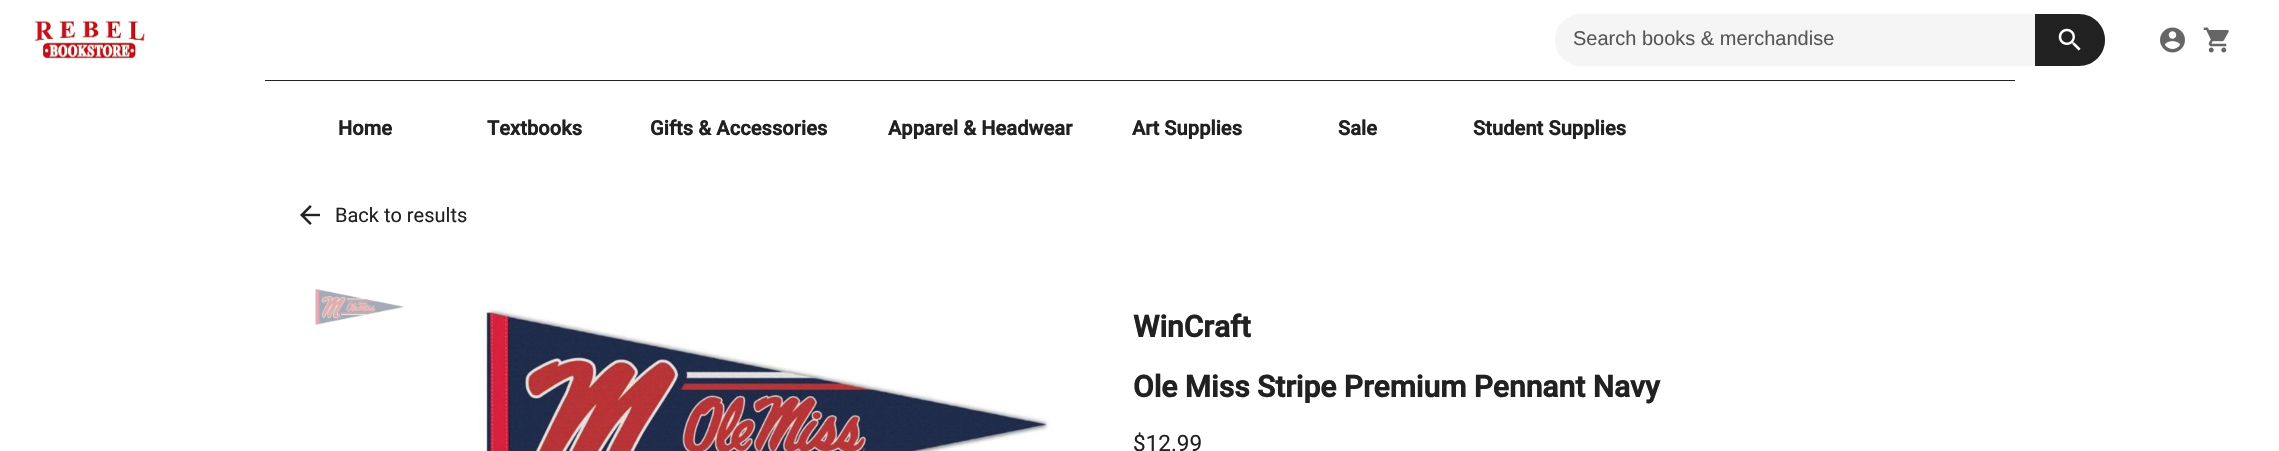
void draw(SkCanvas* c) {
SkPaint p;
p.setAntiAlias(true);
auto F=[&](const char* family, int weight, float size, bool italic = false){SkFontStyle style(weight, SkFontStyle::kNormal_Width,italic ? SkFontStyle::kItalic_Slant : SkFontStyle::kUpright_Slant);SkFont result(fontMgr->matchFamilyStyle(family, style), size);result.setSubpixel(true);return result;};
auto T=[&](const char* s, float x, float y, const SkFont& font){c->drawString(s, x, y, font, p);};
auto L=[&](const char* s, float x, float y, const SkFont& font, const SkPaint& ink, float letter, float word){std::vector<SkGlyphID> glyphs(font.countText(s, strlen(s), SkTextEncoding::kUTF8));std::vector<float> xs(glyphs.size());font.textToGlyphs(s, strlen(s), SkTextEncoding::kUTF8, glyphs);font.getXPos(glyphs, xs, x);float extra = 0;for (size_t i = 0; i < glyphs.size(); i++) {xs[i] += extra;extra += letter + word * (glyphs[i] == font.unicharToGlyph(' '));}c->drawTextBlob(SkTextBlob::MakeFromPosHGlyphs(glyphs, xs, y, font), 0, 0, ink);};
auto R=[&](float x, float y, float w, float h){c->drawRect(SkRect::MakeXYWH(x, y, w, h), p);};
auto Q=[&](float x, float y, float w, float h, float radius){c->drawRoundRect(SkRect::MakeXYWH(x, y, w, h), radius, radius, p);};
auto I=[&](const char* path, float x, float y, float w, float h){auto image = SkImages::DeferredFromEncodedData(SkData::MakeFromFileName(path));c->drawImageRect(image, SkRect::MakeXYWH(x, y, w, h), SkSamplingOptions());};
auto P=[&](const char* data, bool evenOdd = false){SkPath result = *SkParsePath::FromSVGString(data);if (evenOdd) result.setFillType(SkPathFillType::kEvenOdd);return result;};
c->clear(0xffffffff);
I("1.png",34,20,112,40);
p.setColor(0xfff5f5f5);
Q(1555,14,550,52,26);
auto f1 = F("Liberation Sans",400,20);
p.setColor(0xff565656);
T("Search books & merchandise",1573,45,f1);
p.setColor(0xff212121);
c->drawPath(P("M2035 14h44c14.5 0 26 11.5 26 26c0 14.5-11.5 26-26 26h-44z"),p);
I("2.png",2058,28,23,23);
I("3.png",2160,27,25,26);
I("4.png",2203,27,26,26);
R(265,80,1750,1);
auto f2 = F("Roboto",700,20);
L("Home",338,135,f2,p,.1,0);
L("Textbooks",487,135,f2,p,.1,0);
L("Gifts & Accessories",650,135,f2,p,.1,0);
L("Apparel & Headwear",888,135,f2,p,.1,0);
L("Art Supplies",1132,135,f2,p,.1,0);
L("Sale",1338,135,f2,p,.1,0);
L("Student Supplies",1473,135,f2,p,.1,0);
I("5.png",300,205,20,20);
auto f3 = F("Roboto",400,20);
T("Back to results",335,222,f3);
I("6.png",315,289,89,36);
I("7.png",479,306,570,145);
auto f4 = F("Roboto",700,30);
T("WinCraft",1133,337,f4);
T("Ole Miss Stripe Premium Pennant Navy",1133,397,f4);
auto f5 = F("Roboto",400,22.5);
T("$12.99",1133,451,f5);
}
